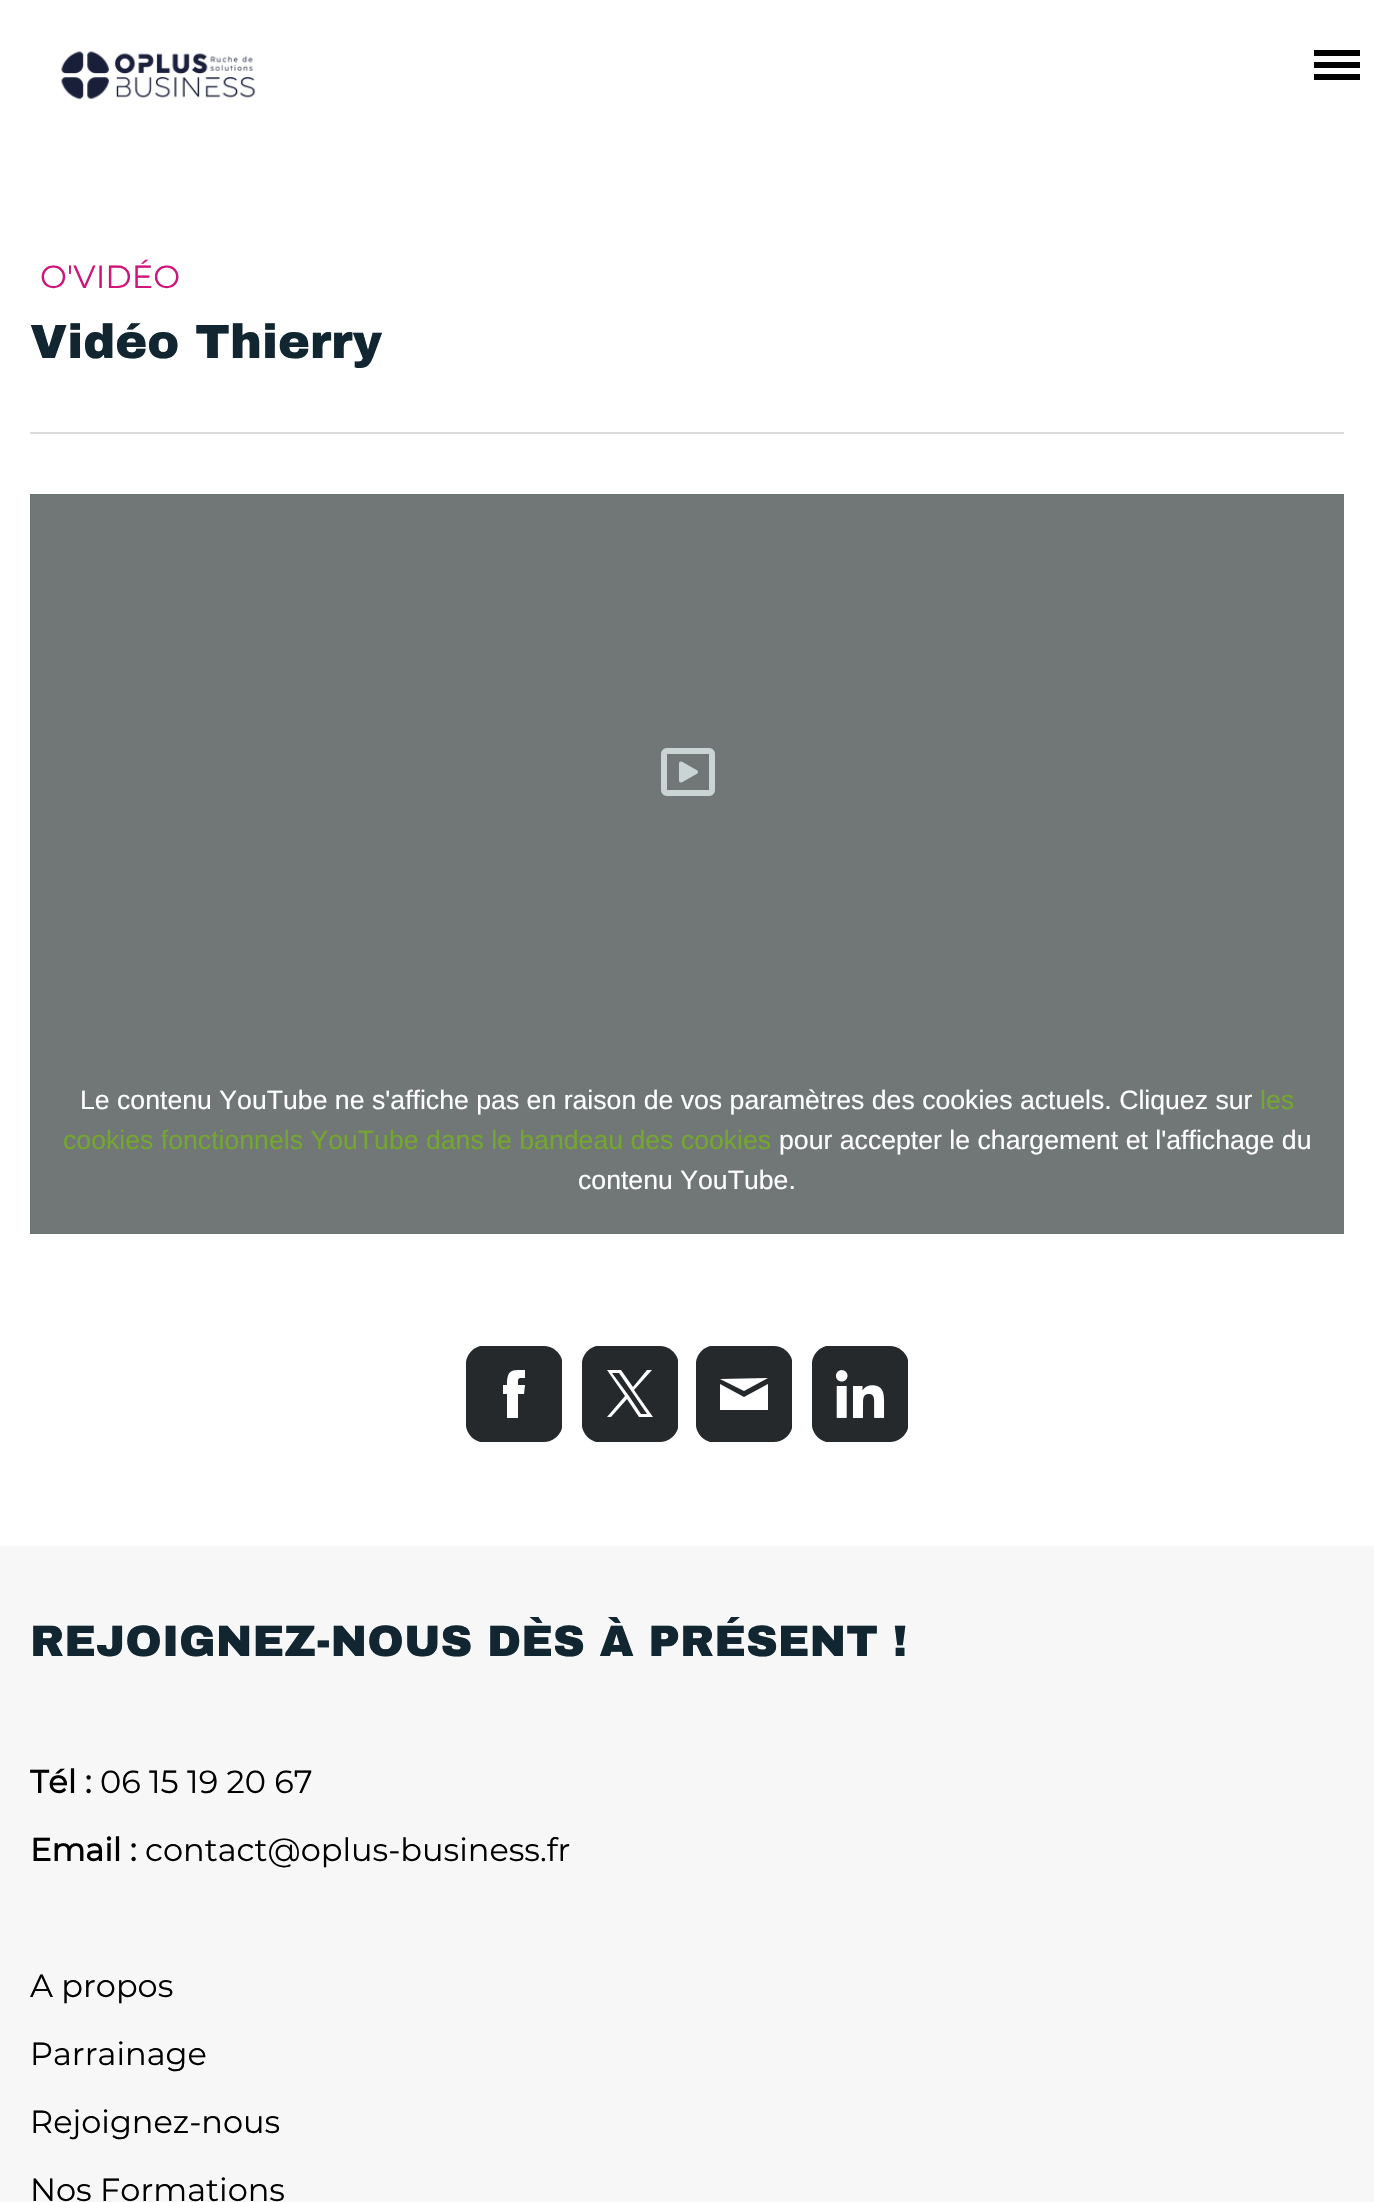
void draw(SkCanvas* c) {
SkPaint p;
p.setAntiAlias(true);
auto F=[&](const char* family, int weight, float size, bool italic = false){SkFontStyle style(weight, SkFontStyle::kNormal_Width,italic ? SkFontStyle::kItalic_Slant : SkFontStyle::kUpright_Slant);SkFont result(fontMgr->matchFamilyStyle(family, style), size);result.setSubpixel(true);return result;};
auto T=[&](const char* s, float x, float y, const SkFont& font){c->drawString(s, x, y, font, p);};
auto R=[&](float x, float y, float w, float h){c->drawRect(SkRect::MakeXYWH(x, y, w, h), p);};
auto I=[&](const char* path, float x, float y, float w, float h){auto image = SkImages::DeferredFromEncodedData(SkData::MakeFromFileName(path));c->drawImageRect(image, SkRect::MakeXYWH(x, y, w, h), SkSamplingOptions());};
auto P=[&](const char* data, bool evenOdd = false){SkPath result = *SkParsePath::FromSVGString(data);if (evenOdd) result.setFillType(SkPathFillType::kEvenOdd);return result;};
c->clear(0xffffffff);
I("1.png",61,51,195,49);
p.setColor(0xff000000);
R(1314,62,46,6);
R(1314,50,46,6);
R(1314,74,46,6);
auto f1 = F("Montserrat",100,32);
p.setColor(0xffd21379);
T("O'VIDÉO",40,288,f1);
auto f2 = F("Archivo Black",900,48);
p.setColor(0xff112631);
T("Vidéo Thierry",30,358,f2);
p.setColor(0xffdcdcdc);
R(30,432,1314,2);
p.setColor(0xff717677);
R(30,494,1314,740);
I("2.png",661,748,54,48);
auto f3 = F("Liberation Sans",400,26.65);
p.setColor(0xffffffff);
T("Le contenu YouTube ne s'affiche pas en raison de vos paramètres des cookies actuels. Cliquez sur",80,1109,f3);
p.setColor(0xff74a72d);
T("les",1260,1109,f3);
T("cookies fonctionnels YouTube dans le bandeau des cookies",63,1149,f3);
p.setColor(0xffffffff);
T("pour accepter le chargement et l'affichage du",779,1149,f3);
T("contenu YouTube.",578,1189,f3);
p.setColor(0xff25292b);
c->drawPath(P("M544 1442h-64c-7-2-13-8-14-16v-64c1-8 7-14 14-16h64c8 0 16 6 18 14v68c-2 8-10 14-18 14z"),p);
p.setColor(0xffffffff);
c->drawPath(P("M525 1370c-13 0-18-1-18 15h-4v9h4v24h11v-24h6l1-9h-7c0-7-1-7 7-7z"),p);
p.setColor(0xff25292b);
c->drawPath(P("M660 1442h-64c-7-2-13-8-14-16v-64c1-8 7-14 14-16h64c8 0 16 6 18 14v68c-2 8-10 14-18 14z"),p);
p.setColor(0xffffffff);
c->drawPath(P("M634 1390l18-20h-5l-14 17l-12-17h-14l18 26l-18 21h4l16-18l12 18h14zm-5 6l-17-23h7l28 41h-6z"),p);
p.setColor(0xff25292b);
c->drawPath(P("M774 1442h-64c-7-2-13-8-14-16v-64c1-8 7-14 14-16h64c8 0 16 6 18 14v68c-2 8-10 14-18 14z"),p);
p.setColor(0xffffffff);
c->drawPath(P("M768 1410h-48v-26l24 13l24-13zm0-32l-48 1l24 12z"),p);
p.setColor(0xff25292b);
c->drawPath(P("M890 1442h-64c-7-2-13-8-14-16v-64c1-8 7-14 14-16h64c8 0 16 6 18 14v68c-2 8-10 14-18 14z"),p);
I("3.png",836,1370,49,48);
p.setColor(0xfff7f7f7);
R(0,1546,1374,656);
auto f4 = F("Archivo Black",900,44);
p.setColor(0xff112631);
T("REJOIGNEZ-NOUS DÈS À PRÉSENT !",30,1656,f4);
auto f5 = F("Montserrat",700,32);
p.setColor(0xff000000);
T("Tél :",30,1793,f5);
T("06 15 19 20 67",100,1793,f1);
T("Email :",30,1861,f5);
T("contact@oplus-business.fr",145,1861,f1);
T("A propos",30,1997,f1);
T("Parrainage",30,2065,f1);
T("Rejoignez-nous",30,2133,f1);
T("Nos Formations",30,2201,f1);
}
